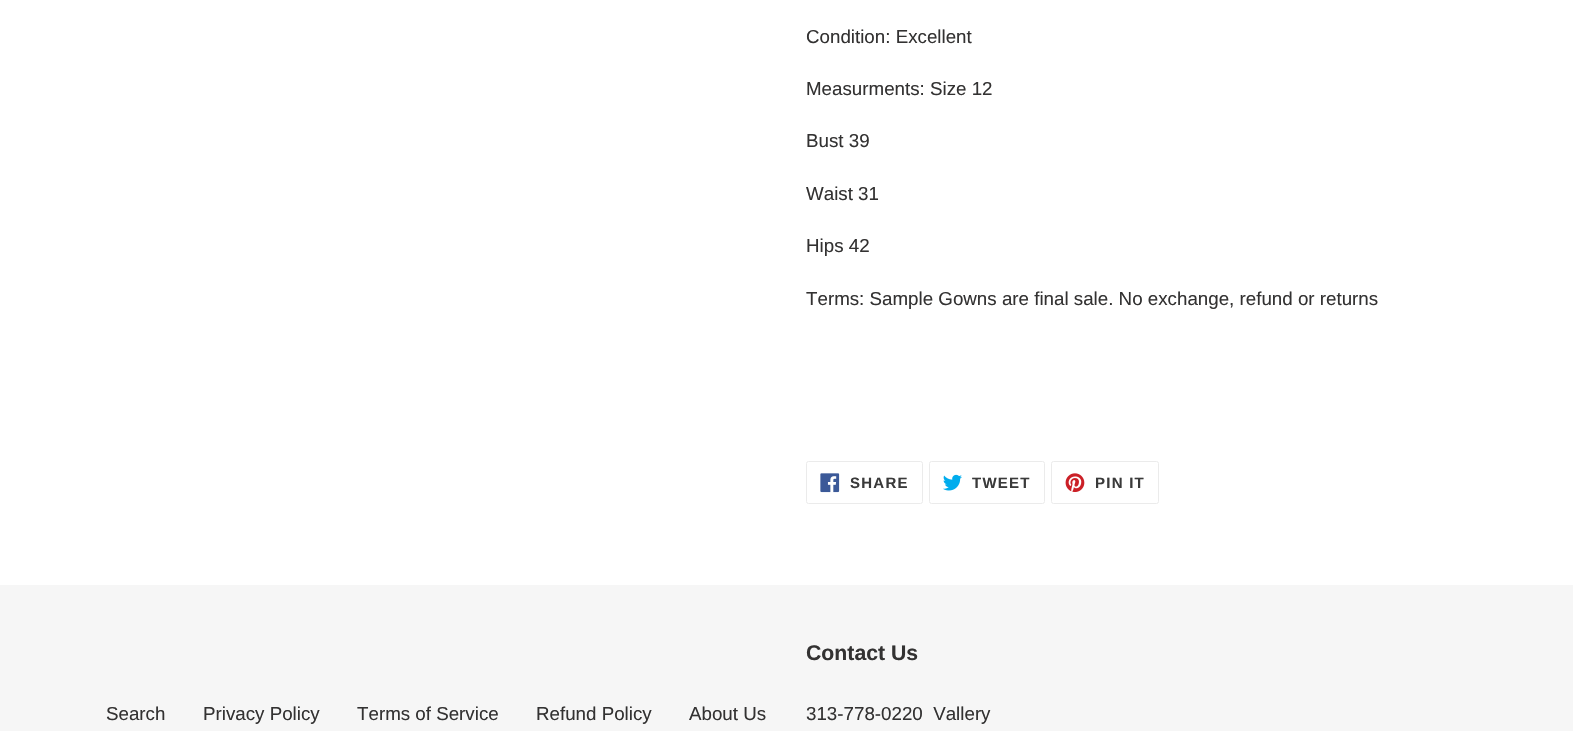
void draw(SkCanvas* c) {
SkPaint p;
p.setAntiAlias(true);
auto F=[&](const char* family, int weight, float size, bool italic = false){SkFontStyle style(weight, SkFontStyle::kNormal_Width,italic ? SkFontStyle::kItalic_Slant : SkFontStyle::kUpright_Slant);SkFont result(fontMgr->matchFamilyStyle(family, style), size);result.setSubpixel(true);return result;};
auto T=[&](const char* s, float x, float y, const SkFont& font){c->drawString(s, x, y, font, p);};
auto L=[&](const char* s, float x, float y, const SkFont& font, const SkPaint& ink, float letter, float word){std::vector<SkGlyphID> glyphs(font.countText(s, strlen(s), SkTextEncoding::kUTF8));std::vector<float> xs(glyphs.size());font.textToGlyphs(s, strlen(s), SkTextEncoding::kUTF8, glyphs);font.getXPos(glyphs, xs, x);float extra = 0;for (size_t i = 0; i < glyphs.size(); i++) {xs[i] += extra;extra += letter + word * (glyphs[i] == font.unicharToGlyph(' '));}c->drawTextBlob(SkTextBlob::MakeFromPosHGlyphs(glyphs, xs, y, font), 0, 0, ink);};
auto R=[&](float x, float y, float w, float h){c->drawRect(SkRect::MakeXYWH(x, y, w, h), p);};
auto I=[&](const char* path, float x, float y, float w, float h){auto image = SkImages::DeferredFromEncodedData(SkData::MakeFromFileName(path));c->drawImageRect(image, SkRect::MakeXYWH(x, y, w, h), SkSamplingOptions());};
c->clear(0xffffffff);
auto f1 = F("Liberation Sans",400,18.75);
p.setColor(0xff333232);
T("Condition: Excellent",806,43,f1);
T("Measurments: Size 12",806,95,f1);
T("Bust 39",806,147,f1);
T("Waist 31",806,200,f1);
T("Hips 42",806,252,f1);
T("Terms: Sample Gowns are final sale. No exchange, refund or returns",806,305,f1);
p.setStroke(true);
p.setStrokeWidth(1);
p.setColor(0xffebebeb);
c->drawRoundRect(SkRect::MakeXYWH(806.5,461.5,116,42),2,2,p);
I("1.png",820,473,20,20);
auto f2 = F("Liberation Sans",700,15);
p.setStroke(false);
p.setColor(0xff3a3a3a);
L("SHARE",850,488,f2,p,1.25,0);
p.setStroke(true);
p.setColor(0xffebebeb);
c->drawRoundRect(SkRect::MakeXYWH(929.5,461.5,115,42),2,2,p);
I("2.png",943,474,19,17);
p.setStroke(false);
p.setColor(0xff3a3a3a);
L("TWEET",972,488,f2,p,1.25,0);
p.setStroke(true);
p.setColor(0xffebebeb);
c->drawRoundRect(SkRect::MakeXYWH(1051.5,461.5,107,42),2,2,p);
I("3.png",1065,473,20,19);
p.setStroke(false);
p.setColor(0xff3a3a3a);
L("PIN IT",1095,488,f2,p,1.25,0);
p.setColor(0xfff6f6f6);
R(0,585,1573,146);
p.setColor(0xff333232);
T("Search",106,720,f1);
T("Privacy Policy",203,720,f1);
T("Terms of Service",357,720,f1);
T("Refund Policy",536,720,f1);
T("About Us",689,720,f1);
auto f3 = F("Liberation Sans",700,21.25);
T("Contact Us",806,660,f3);
T("313-778-0220  Vallery",806,720,f1);
}
